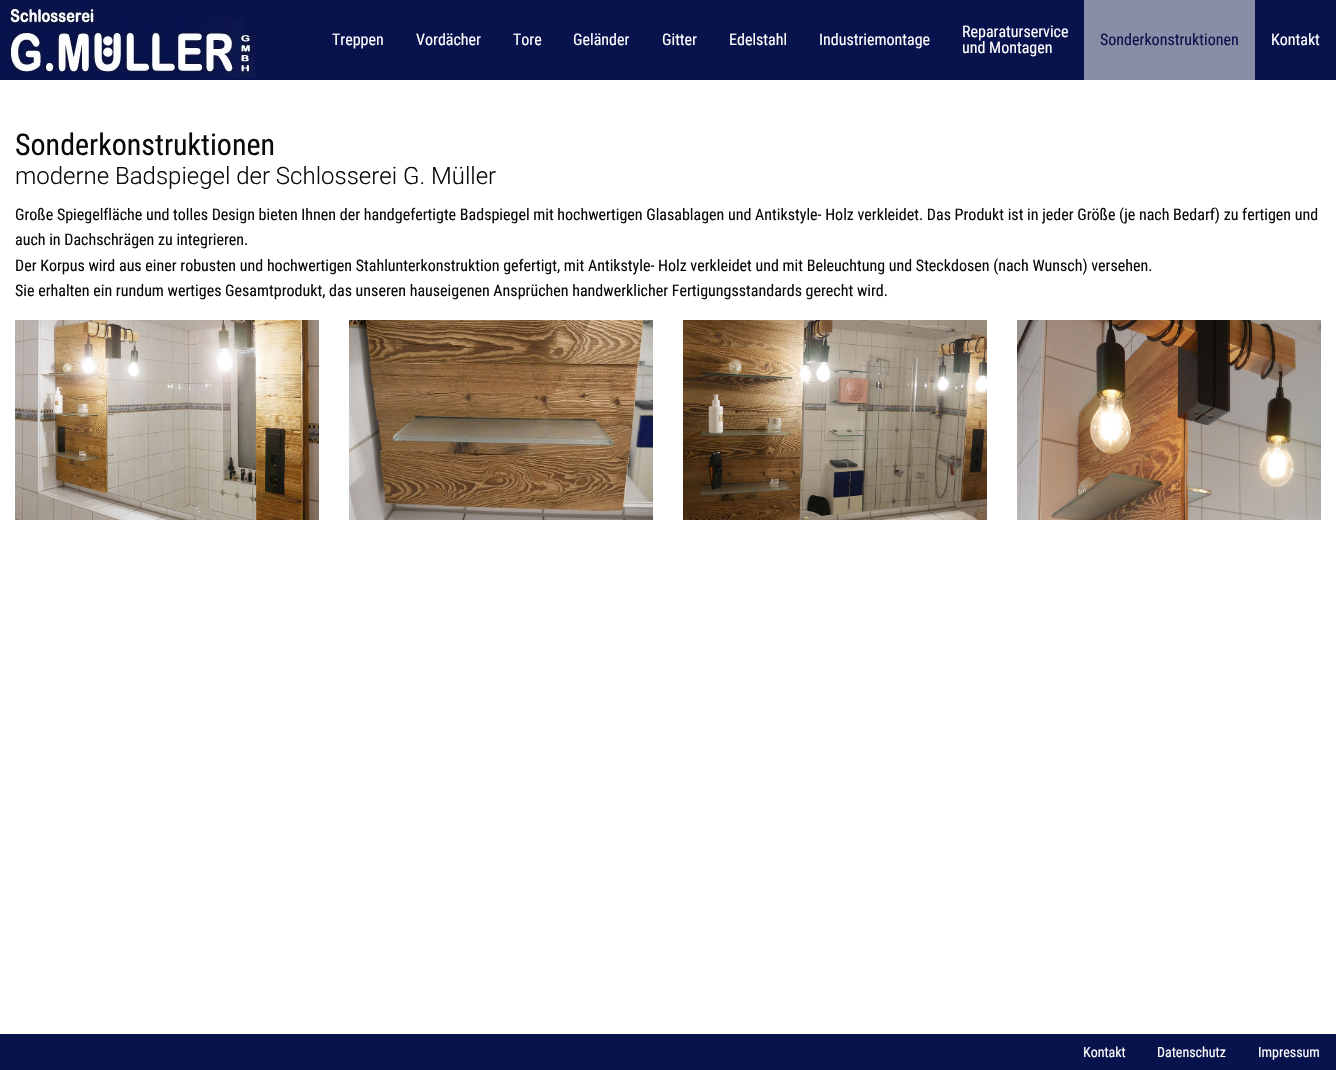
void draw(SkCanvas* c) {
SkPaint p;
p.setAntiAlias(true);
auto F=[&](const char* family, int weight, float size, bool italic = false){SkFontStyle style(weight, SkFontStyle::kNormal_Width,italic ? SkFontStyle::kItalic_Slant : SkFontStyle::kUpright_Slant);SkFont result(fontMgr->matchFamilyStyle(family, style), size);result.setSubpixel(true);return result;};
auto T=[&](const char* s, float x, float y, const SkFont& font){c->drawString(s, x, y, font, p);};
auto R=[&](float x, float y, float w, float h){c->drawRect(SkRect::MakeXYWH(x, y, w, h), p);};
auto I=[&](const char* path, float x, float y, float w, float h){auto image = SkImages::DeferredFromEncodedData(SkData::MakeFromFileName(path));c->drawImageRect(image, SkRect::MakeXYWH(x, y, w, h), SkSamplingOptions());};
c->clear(0xffffffff);
p.setColor(0xff08124d);
R(0,0,1336,80);
I("1.png",0,3,255,75);
auto f1 = F("Roboto Condensed",400,16);
p.setColor(0xffffffff);
T("Treppen",332,45,f1);
T("Vordächer",416,45,f1);
T("Tore",513,45,f1);
T("Geländer",573,45,f1);
T("Gitter",662,45,f1);
T("Edelstahl",729,45,f1);
T("Industriemontage",819,45,f1);
T("Reparaturservice",962,37,f1);
T("und Montagen",962,53,f1);
p.setColor(0xff898da6);
R(1084,0,171,80);
p.setColor(0xff08124d);
T("Sonderkonstruktionen",1100,45,f1);
p.setColor(0xffffffff);
T("Kontakt",1271,45,f1);
auto f2 = F("Roboto Condensed",400,30);
p.setColor(0xff0a0a0a);
T("Sonderkonstruktionen",15,155,f2);
auto f3 = F("Roboto",300,24);
T("moderne Badspiegel der Schlosserei G. Müller",15,184,f3);
T("Große Spiegelfläche und tolles Design bieten Ihnen der handgefertigte Badspiegel mit hochwertigen Glasablagen und Antikstyle- Holz verkleidet. Das Produkt ist in jeder Größe (je nach Bedarf) zu fertigen und",15,220,f1);
T("auch in Dachschrägen zu integrieren.",15,245,f1);
T("Der Korpus wird aus einer robusten und hochwertigen Stahlunterkonstruktion gefertigt, mit Antikstyle- Holz verkleidet und mit Beleuchtung und Steckdosen (nach Wunsch) versehen.",15,271,f1);
T("Sie erhalten ein rundum wertiges Gesamtprodukt, das unseren hauseigenen Ansprüchen handwerklicher Fertigungsstandards gerecht wird.",15,296,f1);
I("2.png",15,320,304,200);
I("3.png",349,320,304,200);
I("4.png",683,320,304,200);
I("5.png",1017,320,304,200);
p.setColor(0xff08124d);
R(0,1034,1336,36);
auto f4 = F("Roboto Condensed",400,14);
p.setColor(0xffffffff);
T("Kontakt",1083,1057,f4);
T("Datenschutz",1157,1057,f4);
T("Impressum",1258,1057,f4);
}
